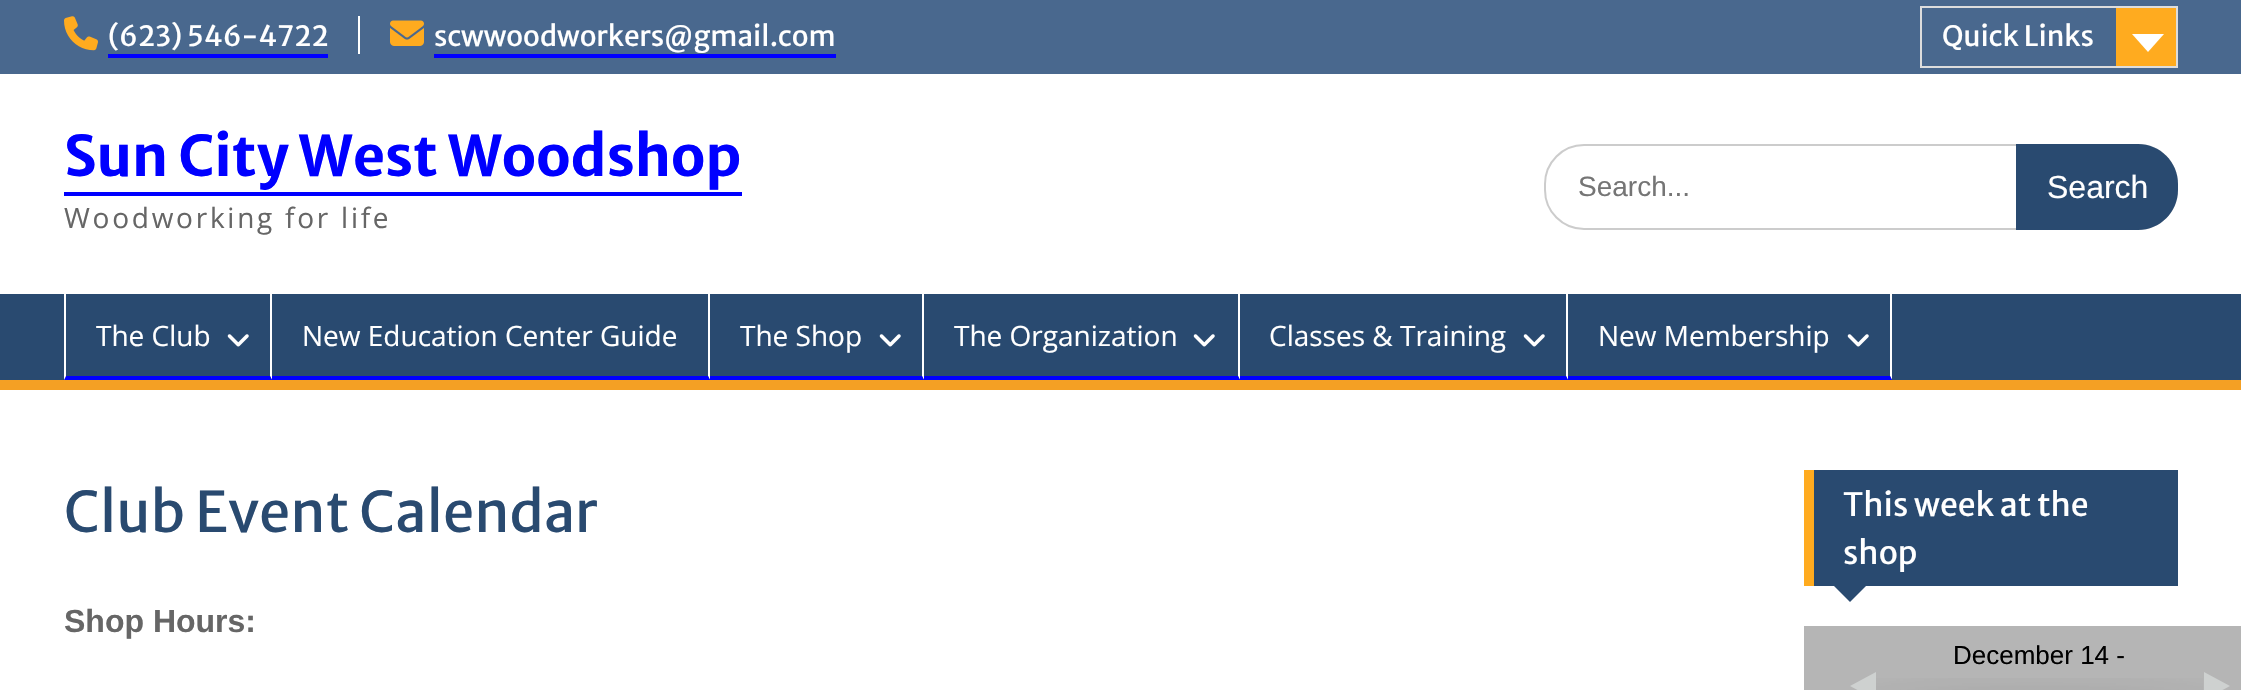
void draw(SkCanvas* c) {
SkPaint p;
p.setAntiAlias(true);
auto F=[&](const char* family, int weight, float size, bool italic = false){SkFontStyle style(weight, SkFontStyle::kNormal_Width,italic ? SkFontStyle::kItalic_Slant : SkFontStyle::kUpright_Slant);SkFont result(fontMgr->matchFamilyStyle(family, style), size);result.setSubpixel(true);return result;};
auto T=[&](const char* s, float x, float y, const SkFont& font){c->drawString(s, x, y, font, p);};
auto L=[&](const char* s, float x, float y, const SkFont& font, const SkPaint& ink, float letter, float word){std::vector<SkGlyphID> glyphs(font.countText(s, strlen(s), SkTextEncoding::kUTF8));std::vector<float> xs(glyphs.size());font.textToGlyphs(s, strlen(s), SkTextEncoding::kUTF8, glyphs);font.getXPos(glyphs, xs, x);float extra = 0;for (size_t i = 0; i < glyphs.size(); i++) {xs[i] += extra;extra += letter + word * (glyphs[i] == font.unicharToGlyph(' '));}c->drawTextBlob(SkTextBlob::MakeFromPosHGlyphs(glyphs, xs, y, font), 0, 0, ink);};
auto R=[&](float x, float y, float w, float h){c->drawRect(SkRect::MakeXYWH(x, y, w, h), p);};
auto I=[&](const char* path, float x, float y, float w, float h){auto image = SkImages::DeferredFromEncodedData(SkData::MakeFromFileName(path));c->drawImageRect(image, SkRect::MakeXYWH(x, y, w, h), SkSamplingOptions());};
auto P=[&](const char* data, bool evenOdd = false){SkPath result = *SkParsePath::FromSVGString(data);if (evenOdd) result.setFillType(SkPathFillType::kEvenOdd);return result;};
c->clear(0xffffffff);
p.setColor(0xff49688e);
R(0,0,2241,74);
I("1.png",64,16,34,35);
auto f1 = F("Merriweather Sans",400,28);
p.setColor(0xffffffff);
T("(623) 546-4722",108,46,f1);
p.setColor(0xff0000ff);
R(108,54,220,4);
p.setColor(0xffffffff);
R(358,16,2,38);
I("2.png",390,20,34,26);
T("scwwoodworkers@gmail.com",434,46,f1);
p.setColor(0xff0000ff);
R(434,54,402,4);
p.setStroke(true);
p.setStrokeWidth(2);
p.setColor(0xffdddddd);
c->drawRect(SkRect::MakeXYWH(1921,7,256,60),p);
p.setStroke(false);
p.setColor(0xffffffff);
T("Quick Links",1942,46,f1);
p.setColor(0xffffab1f);
R(2116,8,60,58);
p.setColor(0xffffffff);
c->drawPath(P("M2132 34h32l-16 18z"),p);
auto f2 = F("Merriweather Sans",700,56);
p.setColor(0xff0000ff);
T("Sun City West Woodshop",64,176,f2);
R(64,192,678,4);
auto f3 = F("Open Sans",400,28);
p.setColor(0xff666666);
L("Woodworking for life",64,228,f3,p,2.75,0);
p.setStroke(true);
p.setColor(0xffcccccc);
c->drawRoundRect(SkRect::MakeXYWH(1545,145,632,84),39,39,p);
auto f4 = F("Liberation Sans",400,28);
p.setStroke(false);
p.setColor(0xff757575);
T("Search...",1578,196,f4);
p.setColor(0xff294a70);
c->drawPath(P("M2016 144h122c22 0 40 18 40 40v6c0 22-18 40-40 40h-122z"),p);
auto f5 = F("Liberation Sans",400,32);
p.setColor(0xffffffff);
T("Search",2047,198,f5);
p.setColor(0xff294a70);
R(0,294,2241,86);
p.setColor(0xfff4a024);
R(0,380,2241,10);
p.setColor(0xffffffff);
c->drawPath(P("M272 294v86l-2-4v-82z"),p);
p.setColor(0xff0000ff);
c->drawPath(P("M272 380h-208l2-4h204z"),p);
p.setColor(0xffffffff);
c->drawPath(P("M64 380v-86h2v82z"),p);
T("The Club",96,346,f3);
I("3.png",227,334,22,13);
c->drawPath(P("M710 294v86l-2-4v-82z"),p);
p.setColor(0xff0000ff);
c->drawPath(P("M710 380h-438v-4h436z"),p);
p.setColor(0xffffffff);
T("New Education Center Guide",302,346,f3);
c->drawPath(P("M924 294v86l-2-4v-82z"),p);
p.setColor(0xff0000ff);
c->drawPath(P("M924 380h-214v-4h212z"),p);
p.setColor(0xffffffff);
T("The Shop",740,346,f3);
I("3.png",879,334,22,13);
c->drawPath(P("M1240 294v86l-2-4v-82z"),p);
p.setColor(0xff0000ff);
c->drawPath(P("M1240 380h-316v-4h314z"),p);
p.setColor(0xffffffff);
T("The Organization",954,346,f3);
I("3.png",1193,334,22,13);
c->drawPath(P("M1568 294v86l-2-4v-82z"),p);
p.setColor(0xff0000ff);
c->drawPath(P("M1568 380h-328v-4h326z"),p);
p.setColor(0xffffffff);
T("Classes & Training",1269,346,f3);
I("3.png",1523,334,22,13);
c->drawPath(P("M1892 294v86l-2-4v-82z"),p);
p.setColor(0xff0000ff);
c->drawPath(P("M1892 380h-324v-4h322z"),p);
p.setColor(0xffffffff);
T("New Membership",1598,346,f3);
I("3.png",1847,334,22,13);
auto f6 = F("Merriweather Sans",400,56);
p.setColor(0xff294a70);
T("Club Event Calendar",64,532,f6);
auto f7 = F("Liberation Sans",700,32);
p.setColor(0xff666666);
T("Shop Hours:",64,632,f7);
p.setColor(0xff294a70);
R(1814,470,364,116);
p.setColor(0xffffab1f);
R(1804,470,10,116);
auto f8 = F("Merriweather Sans",400,32);
p.setColor(0xffffffff);
T("This week at the",1843,516,f8);
T("shop",1843,564,f8);
p.setColor(0xff294a70);
c->drawPath(P("M1832 584h36l-18 18z"),p);
p.setColor(0xffb5b5b5);
R(1804,626,437,64);
I("4.png",1876,678,327,12);
auto f9 = F("Liberation Sans",400,26);
p.setColor(0xff000000);
T("December 14 -",1953,664,f9);
p.setColor(0xffced1d0);
c->drawPath(P("M1876 672v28l-26-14z"),p);
c->drawPath(P("M2204 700v-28l26 14z"),p);
}
